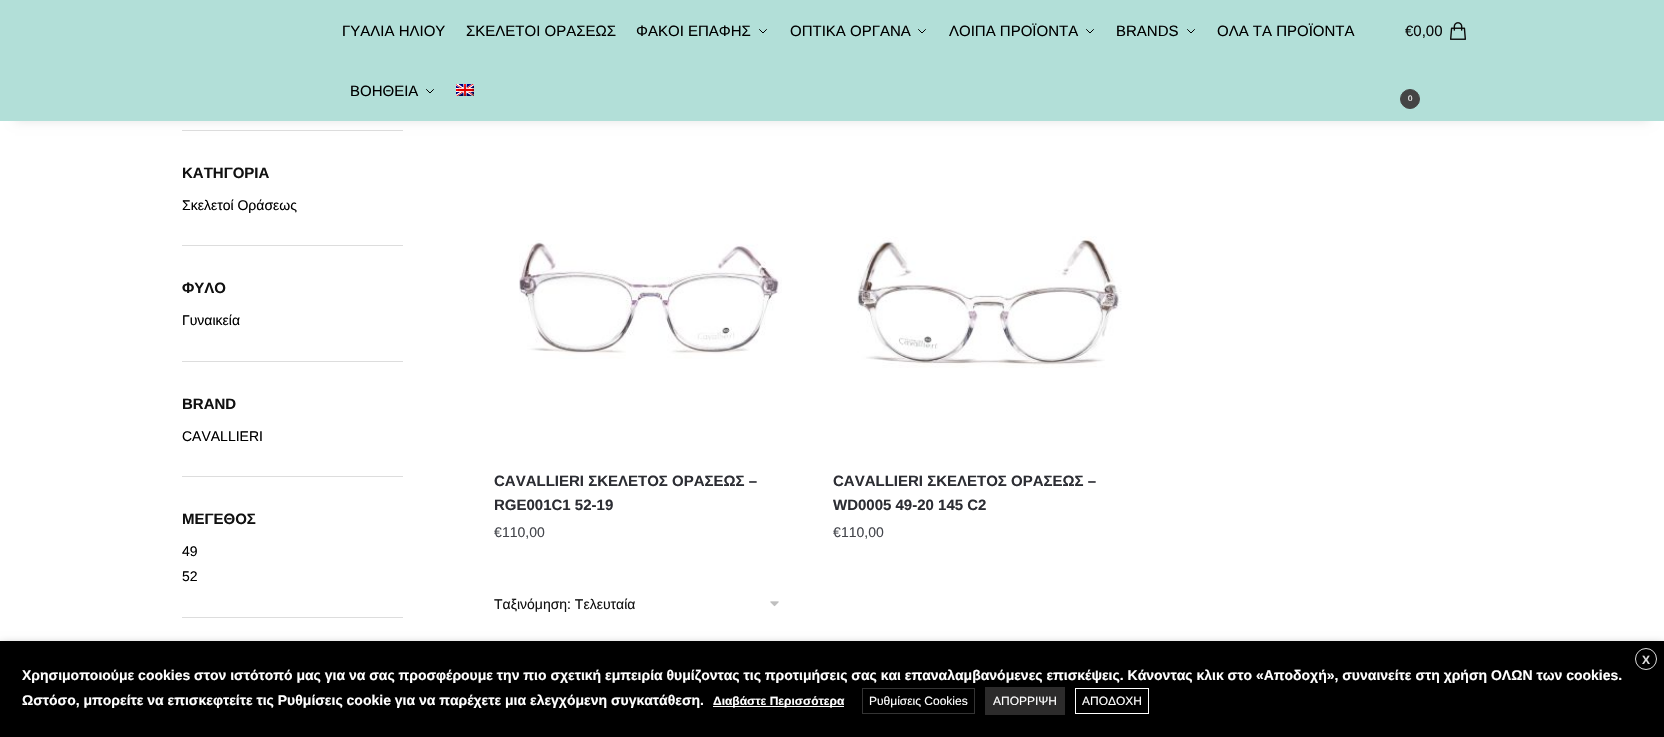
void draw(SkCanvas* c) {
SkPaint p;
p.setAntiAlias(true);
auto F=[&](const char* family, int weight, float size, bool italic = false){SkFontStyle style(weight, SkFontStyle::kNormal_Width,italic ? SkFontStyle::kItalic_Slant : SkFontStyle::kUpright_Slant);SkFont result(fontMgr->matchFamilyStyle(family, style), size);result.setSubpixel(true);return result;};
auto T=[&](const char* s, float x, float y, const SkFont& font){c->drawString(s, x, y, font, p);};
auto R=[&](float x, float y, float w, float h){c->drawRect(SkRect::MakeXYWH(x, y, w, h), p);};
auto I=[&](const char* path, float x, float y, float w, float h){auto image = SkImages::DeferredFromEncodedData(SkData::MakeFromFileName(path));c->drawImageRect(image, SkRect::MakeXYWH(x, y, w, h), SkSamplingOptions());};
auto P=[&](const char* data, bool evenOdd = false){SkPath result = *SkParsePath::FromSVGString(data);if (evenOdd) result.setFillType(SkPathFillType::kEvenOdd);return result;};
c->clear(0xffffffff);
p.setColor(0xffdddddd);
R(182,130,221,1);
p.setColor(0x1a000000);
p.setMaskFilter(SkMaskFilter::MakeBlur(kNormal_SkBlurStyle, 5));
c->drawRect(SkRect::MakeXYWH(15,30,1634,91),p);
p.setMaskFilter(nullptr);
p.setColor(0xffb2dfd8);
R(0,0,1664,121);
auto f1 = F("Liberation Sans",400,15);
p.setColor(0xff000000);
T("ΓΥΑΛΙΑ ΗΛΙΟΥ",342,36,f1);
T("ΣΚΕΛΕΤΟΙ ΟΡΑΣΕΩΣ",466,36,f1);
T("ΦΑΚΟΙ ΕΠΑΦΗΣ",636,36,f1);
p.setStroke(true);
p.setStrokeWidth(1);
p.setStrokeCap(SkPaint::kRound_Cap);
p.setStrokeJoin(SkPaint::kRound_Join);
c->drawPath(P("M766.5 29.5l-3.5 3.5l-3.5-3.5"),p);
p.setStroke(false);
T("ΟΠΤΙΚΑ ΟΡΓΑΝΑ",790,36,f1);
p.setStroke(true);
c->drawPath(P("M925.5 29.5l-3.5 3.5l-3.5-3.5"),p);
p.setStroke(false);
T("ΛΟΙΠΑ ΠΡΟΪΟΝΤΑ",949,36,f1);
p.setStroke(true);
c->drawPath(P("M1093.5 29.5l-3.5 3.5l-3.5-3.5"),p);
p.setStroke(false);
T("BRANDS",1116,36,f1);
p.setStroke(true);
c->drawPath(P("M1194.5 29.5l-3.5 3.5l-3.5-3.5"),p);
p.setStroke(false);
T("ΟΛΑ ΤΑ ΠΡΟΪΟΝΤΑ",1217,36,f1);
T("ΒΟΗΘΕΙΑ",350,96,f1);
p.setStroke(true);
c->drawPath(P("M433.5 89.5l-3.5 3.5l-3.5-3.5"),p);
I("1.png",456,84,18,12);
p.setStroke(false);
p.setColor(0xff0a0a0a);
T("€0,00",1405,36,f1);
I("2.png",1450,22,16,18);
p.setColor(0xff444444);
c->drawCircle(1410,99,9.5,p);
p.setStroke(true);
p.setStrokeCap(SkPaint::kButt_Cap);
p.setStrokeJoin(SkPaint::kMiter_Join);
c->drawCircle(1410,99,9.5,p);
auto f2 = F("Liberation Sans",400,8);
p.setStroke(false);
p.setColor(0xffffffff);
T("0",1408,101,f2);
p.setColor(0xffdddddd);
R(182,245,221,1);
auto f3 = F("Liberation Sans",700,15);
p.setColor(0xff111111);
T("ΚΑΤΗΓΟΡΙΑ",182,178,f3);
auto f4 = F("Liberation Sans",400,14);
p.setColor(0xff000000);
T("Σκελετοί Οράσεως",182,210,f4);
p.setColor(0xffdddddd);
R(182,361,221,1);
p.setColor(0xff111111);
T("ΦΥΛΟ",182,293,f3);
p.setColor(0xff000000);
T("Γυναικεία",182,325,f4);
p.setColor(0xffdddddd);
R(182,476,221,1);
p.setColor(0xff111111);
T("BRAND",182,409,f3);
p.setColor(0xff000000);
T("CAVALLIERI",182,441,f4);
p.setColor(0xffdddddd);
R(182,617,221,1);
p.setColor(0xff111111);
T("ΜΕΓΕΘΟΣ",182,524,f3);
p.setColor(0xff000000);
T("49",182,556,f4);
T("52",182,581,f4);
I("3.png",519,240,263,119);
p.setColor(0xff2c2d33);
T("CAVALLIERI ΣΚΕΛΕΤΟΣ ΟΡΑΣΕΩΣ –",494,486,f3);
T("RGE001C1 52-19",494,510,f3);
p.setColor(0xff43454b);
T("€",494,537,f4);
T("110,00",502,537,f4);
I("4.png",857,236,265,132);
p.setColor(0xff2c2d33);
T("CAVALLIERI ΣΚΕΛΕΤΟΣ ΟΡΑΣΕΩΣ –",833,486,f3);
T("WD0005 49-20 145 C2",833,510,f3);
p.setColor(0xff43454b);
T("€",833,537,f4);
T("110,00",841,537,f4);
I("5.png",770,601,9,6);
p.setColor(0xff111111);
T("Ταξινόμηση: Τελευταία",494,609,f4);
p.setColor(0x80000000);
p.setMaskFilter(SkMaskFilter::MakeBlur(kNormal_SkBlurStyle, 5));
c->drawRect(SkRect::MakeXYWH(0,646,1664,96),p);
p.setMaskFilter(nullptr);
p.setColor(0xff000000);
R(0,641,1664,96);
p.setStroke(true);
p.setColor(0xffdddddd);
c->drawCircle(1646,659,10.5,p);
auto f5 = F("Liberation Sans",700,12);
p.setStroke(false);
T("X",1642,664,f5);
auto f6 = F("Liberation Sans",700,14);
p.setColor(0xffffffff);
T("Χρησιμοποιούμε cookies στον ιστότοπό μας για να σας προσφέρουμε την πιο σχετική εμπειρία θυμίζοντας τις προτιμήσεις σας και επαναλαμβανόμενες επισκέψεις. Κάνοντας κλικ στο «Αποδοχή», συναινείτε στη χρήση ΟΛΩΝ των cookies.",22,680,f6);
T("Ωστόσο, μπορείτε να επισκεφτείτε τις Ρυθμίσεις cookie για να παρέχετε μια ελεγχόμενη συγκατάθεση.",22,705,f6);
R(713,706,131,1);
T("Διαβάστε Περισσότερα",713,705,f5);
p.setStroke(true);
p.setColor(0xff343434);
c->drawRect(SkRect::MakeXYWH(862.5,688.5,112,25),p);
auto f7 = F("Liberation Sans",400,12);
p.setStroke(false);
p.setColor(0xffffffff);
T("Ρυθμίσεις Cookies",869,705,f7);
p.setColor(0xff2c2b2b);
R(985,687,80,28);
p.setColor(0xffffffff);
T("ΑΠΟΡΡΙΨΗ",993,705,f7);
p.setStroke(true);
c->drawRect(SkRect::MakeXYWH(1075.5,688.5,73,25),p);
p.setStroke(false);
T("ΑΠΟΔΟΧΗ",1082,705,f7);
}
